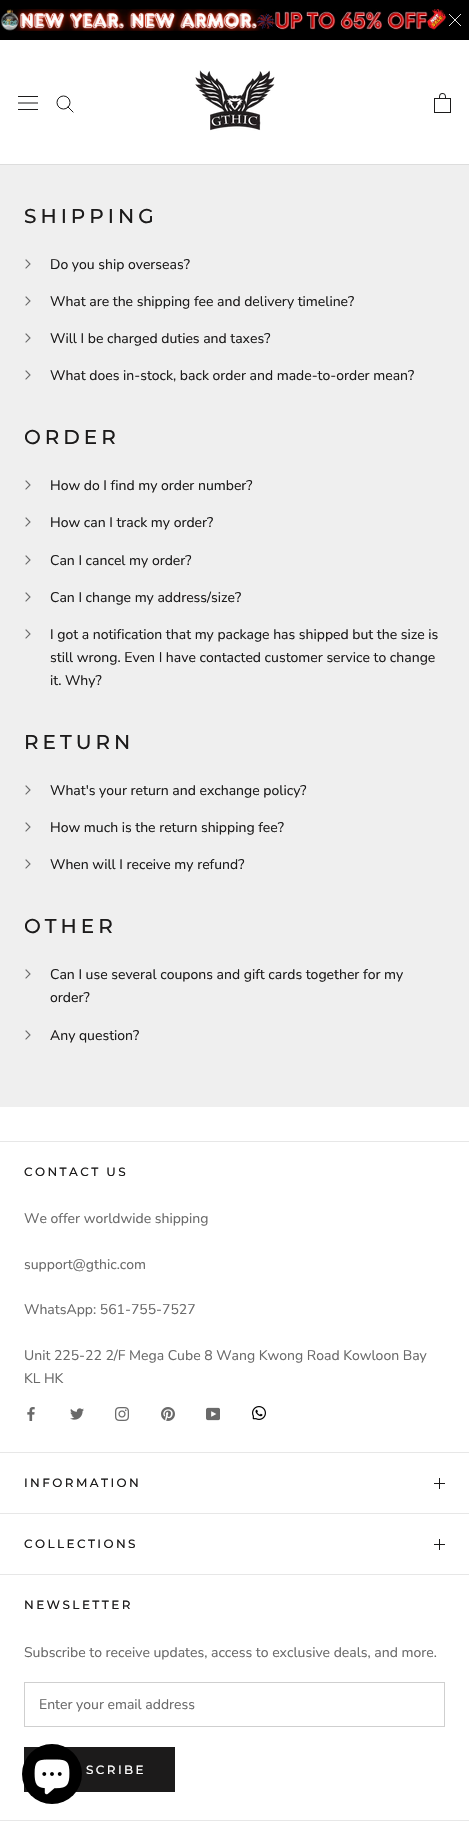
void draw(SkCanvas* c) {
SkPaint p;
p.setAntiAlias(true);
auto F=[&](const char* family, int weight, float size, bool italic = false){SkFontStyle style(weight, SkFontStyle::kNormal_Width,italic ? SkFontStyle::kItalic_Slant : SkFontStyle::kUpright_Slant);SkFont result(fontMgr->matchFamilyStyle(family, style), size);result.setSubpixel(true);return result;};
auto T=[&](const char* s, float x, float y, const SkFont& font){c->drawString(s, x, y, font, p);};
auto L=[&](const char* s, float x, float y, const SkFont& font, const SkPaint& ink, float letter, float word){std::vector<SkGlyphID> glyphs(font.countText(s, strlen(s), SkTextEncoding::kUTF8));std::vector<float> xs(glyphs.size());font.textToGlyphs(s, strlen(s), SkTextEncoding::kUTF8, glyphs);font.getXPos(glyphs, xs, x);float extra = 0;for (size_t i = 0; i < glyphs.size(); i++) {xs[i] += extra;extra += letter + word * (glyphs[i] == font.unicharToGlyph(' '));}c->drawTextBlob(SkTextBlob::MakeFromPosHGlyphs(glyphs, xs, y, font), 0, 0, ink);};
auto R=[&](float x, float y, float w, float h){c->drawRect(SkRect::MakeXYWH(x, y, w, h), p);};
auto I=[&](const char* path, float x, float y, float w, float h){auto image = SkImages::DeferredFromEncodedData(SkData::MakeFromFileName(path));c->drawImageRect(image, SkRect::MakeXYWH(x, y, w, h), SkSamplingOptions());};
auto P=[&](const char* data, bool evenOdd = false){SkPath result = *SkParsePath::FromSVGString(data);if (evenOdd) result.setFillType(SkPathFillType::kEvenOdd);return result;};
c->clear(0xffefefef);
p.setColor(0xff000000);
R(0,0,469,40);
I("1.png",0,9,447,22);
p.setStroke(true);
p.setStrokeWidth(.9);
p.setColor(0xffffffff);
c->drawPath(P("M461 14l-12 12m12 0l-12-12"),p);
p.setStroke(false);
R(0,40,469,124);
p.setColor(0xffdddddd);
R(0,164,469,1);
I("2.png",18,96,20,14);
p.setStroke(true);
p.setStrokeWidth(1);
p.setStrokeCap(SkPaint::kSquare_Cap);
p.setColor(0xff1c1b1b);
c->drawPath(P("M73 112l-5-5"),p);
p.setStrokeCap(SkPaint::kButt_Cap);
c->drawCircle(63.5,102.5,6.5,p);
I("3.png",195,70,80,61);
I("4.png",434,93,17,20);
auto f1 = F("Montserrat",100,20);
p.setStroke(false);
L("SHIPPING",24,223,f1,p,4,0);
p.setStroke(true);
p.setStrokeWidth(1.1);
p.setStrokeCap(SkPaint::kSquare_Cap);
p.setColor(0xff6a6a6a);
c->drawPath(P("M26 260l4 4l-4 4"),p);
auto f2 = F("Nunito Sans",400,14);
p.setStroke(false);
p.setColor(0xff1c1b1b);
T("Do you ship overseas?",50,269,f2);
p.setStroke(true);
p.setColor(0xff6a6a6a);
c->drawPath(P("M26 297l4 4l-4 4"),p);
p.setStroke(false);
p.setColor(0xff1c1b1b);
T("What are the shipping fee and delivery timeline?",50,306,f2);
p.setStroke(true);
p.setColor(0xff6a6a6a);
c->drawPath(P("M26 334l4 4l-4 4"),p);
p.setStroke(false);
p.setColor(0xff1c1b1b);
T("Will I be charged duties and taxes?",50,343,f2);
p.setStroke(true);
p.setColor(0xff6a6a6a);
c->drawPath(P("M26 371l4 4l-4 4"),p);
p.setStroke(false);
p.setColor(0xff1c1b1b);
T("What does in-stock, back order and made-to-order mean?",50,380,f2);
L("ORDER",24,444,f1,p,4,0);
p.setStroke(true);
p.setColor(0xff6a6a6a);
c->drawPath(P("M26 481l4 4l-4 4"),p);
p.setStroke(false);
p.setColor(0xff1c1b1b);
T("How do I find my order number?",50,490,f2);
p.setStroke(true);
p.setColor(0xff6a6a6a);
c->drawPath(P("M26 518l4 4l-4 4"),p);
p.setStroke(false);
p.setColor(0xff1c1b1b);
T("How can I track my order?",50,527,f2);
p.setStroke(true);
p.setColor(0xff6a6a6a);
c->drawPath(P("M26 556l4 4l-4 4"),p);
p.setStroke(false);
p.setColor(0xff1c1b1b);
T("Can I cancel my order?",50,565,f2);
p.setStroke(true);
p.setColor(0xff6a6a6a);
c->drawPath(P("M26 593l4 4l-4 4"),p);
p.setStroke(false);
p.setColor(0xff1c1b1b);
T("Can I change my address/size?",50,602,f2);
p.setStroke(true);
p.setColor(0xff6a6a6a);
c->drawPath(P("M26 630l4 4l-4 4"),p);
p.setStroke(false);
p.setColor(0xff1c1b1b);
T("I got a notification that my package has shipped but the size is",50,639,f2);
T("still wrong. Even I have contacted customer service to change",50,662,f2);
T("it. Why?",50,685,f2);
L("RETURN",24,749,f1,p,4,0);
p.setStroke(true);
p.setColor(0xff6a6a6a);
c->drawPath(P("M26 786l4 4l-4 4"),p);
p.setStroke(false);
p.setColor(0xff1c1b1b);
T("What's your return and exchange policy?",50,795,f2);
p.setStroke(true);
p.setColor(0xff6a6a6a);
c->drawPath(P("M26 823l4 4l-4 4"),p);
p.setStroke(false);
p.setColor(0xff1c1b1b);
T("How much is the return shipping fee?",50,832,f2);
p.setStroke(true);
p.setColor(0xff6a6a6a);
c->drawPath(P("M26 860l4 4l-4 4"),p);
p.setStroke(false);
p.setColor(0xff1c1b1b);
T("When will I receive my refund?",50,869,f2);
L("OTHER",24,933,f1,p,4,0);
p.setStroke(true);
p.setColor(0xff6a6a6a);
c->drawPath(P("M26 970l4 4l-4 4"),p);
p.setStroke(false);
p.setColor(0xff1c1b1b);
T("Can I use several coupons and gift cards together for my",50,979,f2);
T("order?",50,1002,f2);
p.setStroke(true);
p.setColor(0xff6a6a6a);
c->drawPath(P("M26 1031l4 4l-4 4"),p);
p.setStroke(false);
p.setColor(0xff1c1b1b);
T("Any question?",50,1040,f2);
p.setColor(0xffffffff);
R(0,1107,469,718);
p.setColor(0xffe7e7e7);
R(0,1141,469,1);
R(0,1452,469,1);
auto f3 = F("Montserrat",100,12);
p.setColor(0xff1c1b1b);
L("CONTACT US",24,1176,f3,p,2.4,0);
p.setColor(0xff6a6a6a);
T("We offer worldwide shipping",24,1223,f2);
T("support@gthic.com",24,1269,f2);
T("WhatsApp: 561-755-7527",24,1314,f2);
T("Unit 225-22 2/F Mega Cube 8 Wang Kwong Road Kowloon Bay",24,1360,f2);
T("KL HK",24,1383,f2);
I("5.png",27,1407,8,14);
I("6.png",70,1408,14,12);
I("7.png",115,1407,14,14);
I("8.png",161,1407,14,14);
I("9.png",206,1407,14,14);
I("10.png",252,1406,14,14);
p.setColor(0xffe7e7e7);
R(0,1513,469,1);
p.setColor(0xff1c1b1b);
L("INFORMATION",24,1487,f3,p,2.4,0);
R(439,1478,1,11);
R(434,1483,11,1);
p.setColor(0xffe7e7e7);
R(0,1574,469,1);
p.setColor(0xff1c1b1b);
L("COLLECTIONS",24,1548,f3,p,2.4,0);
R(439,1539,1,11);
R(434,1544,11,1);
p.setColor(0xffe7e7e7);
R(0,1820,469,1);
p.setColor(0xff1c1b1b);
L("NEWSLETTER",24,1609,f3,p,2.4,0);
p.setColor(0xff6a6a6a);
T("Subscribe to receive updates, access to exclusive deals, and more.",24,1657,f2);
p.setStroke(true);
p.setStrokeWidth(1);
p.setStrokeCap(SkPaint::kButt_Cap);
p.setColor(0xffcfcfcf);
c->drawRect(SkRect::MakeXYWH(24.5,1682.5,420,44),p);
p.setStroke(false);
p.setColor(0xff6a6a6a);
T("Enter your email address",39,1709,f2);
p.setStroke(true);
p.setColor(0xff1c1b1b);
c->drawRect(SkRect::MakeXYWH(24.5,1747.5,150,44),p);
p.setStroke(false);
R(25,1748,149,43);
p.setColor(0xffffffff);
L("SCRIBE",86,1774,f3,p,2.4,0);
p.setColor(0xff000000);
c->drawCircle(52,1774,30,p);
I("11.png",34,1759,36,36);
}
